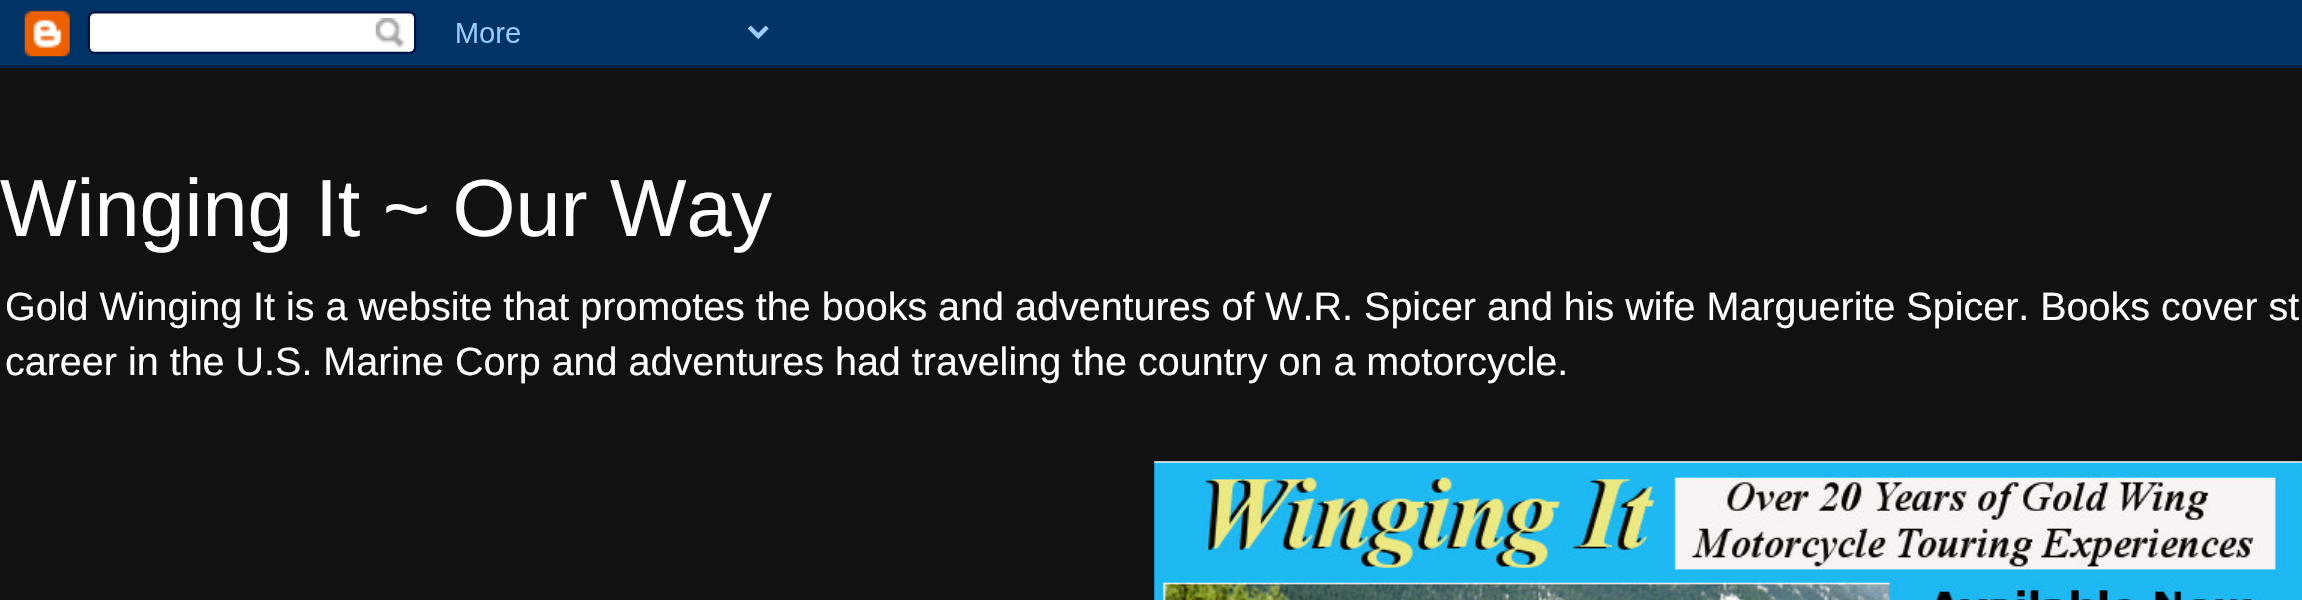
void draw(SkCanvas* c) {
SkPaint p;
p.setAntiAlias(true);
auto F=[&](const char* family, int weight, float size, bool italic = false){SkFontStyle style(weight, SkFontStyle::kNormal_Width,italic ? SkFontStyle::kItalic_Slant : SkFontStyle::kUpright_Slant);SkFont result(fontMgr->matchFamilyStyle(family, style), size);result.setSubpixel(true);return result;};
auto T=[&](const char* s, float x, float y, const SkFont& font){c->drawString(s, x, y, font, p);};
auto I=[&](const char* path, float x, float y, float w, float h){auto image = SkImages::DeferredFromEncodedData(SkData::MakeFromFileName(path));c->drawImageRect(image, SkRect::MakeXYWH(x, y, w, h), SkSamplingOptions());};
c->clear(0xff111111);
I("1.png",0,0,2302,68);
auto f1 = F("Liberation Sans",400,81);
p.setColor(0xffffffff);
T("Winging It ~ Our Way",0,236,f1);
auto f2 = F("Liberation Sans",400,39.5);
T("Gold Winging It is a website that promotes the books and adventures of W.R. Spicer and his wife Marguerite Spicer. Books cover st",5,320,f2);
T("career in the U.S. Marine Corp and adventures had traveling the country on a motorcycle.",5,375,f2);
I("2.png",1154,461,1148,139);
}
